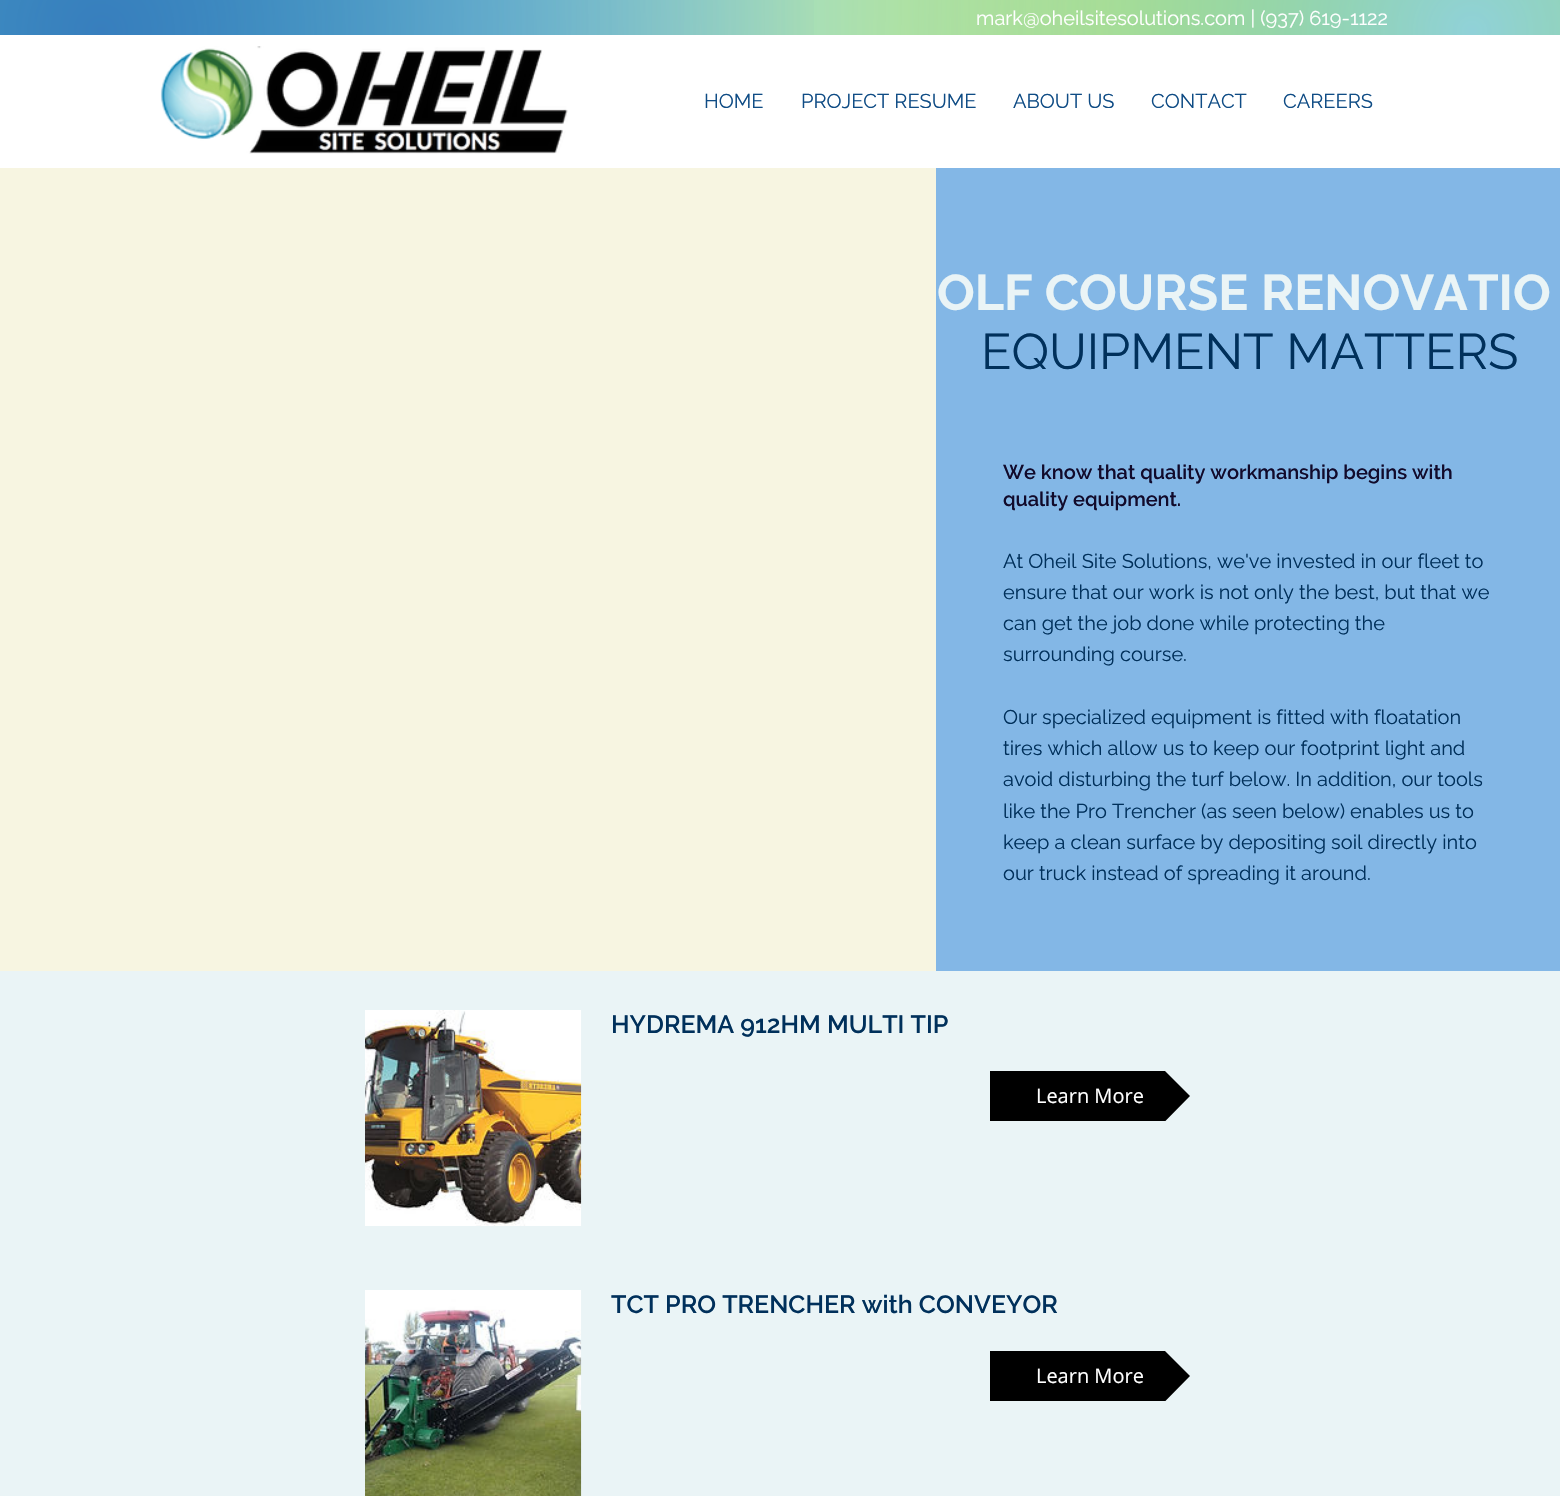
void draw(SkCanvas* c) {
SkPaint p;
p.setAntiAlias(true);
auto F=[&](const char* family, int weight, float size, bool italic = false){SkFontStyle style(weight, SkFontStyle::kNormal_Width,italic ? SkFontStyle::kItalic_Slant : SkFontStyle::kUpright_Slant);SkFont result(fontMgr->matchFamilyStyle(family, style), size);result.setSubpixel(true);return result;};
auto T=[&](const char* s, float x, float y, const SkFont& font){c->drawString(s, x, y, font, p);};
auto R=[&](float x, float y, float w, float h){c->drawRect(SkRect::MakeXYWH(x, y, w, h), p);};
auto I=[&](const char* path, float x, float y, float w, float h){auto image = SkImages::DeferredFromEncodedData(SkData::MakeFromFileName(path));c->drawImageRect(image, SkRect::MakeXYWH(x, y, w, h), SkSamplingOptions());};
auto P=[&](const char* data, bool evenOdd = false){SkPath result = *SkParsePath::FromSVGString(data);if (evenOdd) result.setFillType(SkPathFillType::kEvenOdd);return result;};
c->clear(0xffeaf4f6);
{
const SkColor colors[] = {0xff8cd624,0xffffffff};
const float stops[] = {0,.7};
p.setShader(SkGradientShader::MakeRadial({1462,4}, 1462, colors, stops, 2, SkTileMode::kClamp));
p.setAlpha(255);
}
R(0,0,1560,35);
{
const SkColor colors[] = {0xff41b7c4,0x0041b7c4};
const float stops[] = {0,.7};
p.setShader(SkGradientShader::MakeRadial({96,4.4}, 1464, colors, stops, 2, SkTileMode::kClamp));
p.setAlpha(255);
}
R(0,0,1096,35);
{
const SkColor colors[] = {0xfc377dbd,0x00377dbd};
const float stops[] = {0,.5};
p.setShader(SkGradientShader::MakeRadial({101,31}, 1459, colors, stops, 2, SkTileMode::kClamp));
p.setAlpha(255);
}
R(0,0,814,35);
{
const SkColor colors[] = {0xff90d1d8,0x0090d1d8};
const float stops[] = {0,.4};
p.setShader(SkGradientShader::MakeRadial({1472,31}, 1472, colors, stops, 2, SkTileMode::kClamp));
p.setAlpha(255);
}
R(910,0,650,35);
auto f1 = F("Raleway",400,20);
p.setShader(nullptr);
p.setColor(0xffffffff);
T("mark@oheilsitesolutions.com | (937) 619-1122",976,25,f1);
R(0,35,1560,133);
I("1.png",160,46,408,108);
p.setColor(0xff0f4c85);
T("HOME",704,108,f1);
T("PROJECT RESUME",801,108,f1);
T("ABOUT US",1013,108,f1);
T("CONTACT",1151,108,f1);
T("CAREERS",1283,108,f1);
p.setColor(0xfff7f5e1);
R(0,168,936,803);
p.setColor(0xff83b7e6);
R(936,168,624,803);
auto f2 = F("Raleway",700,50);
p.setColor(0xffeaf4f6);
T("OLF COURSE",937,310,f2);
T("RENOVATIO",1261,310,f2);
auto f3 = F("Raleway",400,50);
p.setColor(0xff00305b);
T("EQUIPMENT MATTERS",981,369,f3);
auto f4 = F("Raleway",600,20);
p.setColor(0xff110a2b);
T("We know that quality workmanship begins with",1003,479,f4);
T("quality equipment.",1003,506,f4);
p.setColor(0xff00305b);
T("At Oheil Site Solutions, we've invested in our fleet to",1003,568,f1);
T("ensure that our work is not only the best, but that we",1003,599,f1);
T("can get the job done while protecting the",1003,630,f1);
T("surrounding course.",1003,661,f1);
T("Our specialized equipment is fitted with floatation",1003,724,f1);
T("tires which allow us to keep our footprint light and",1003,755,f1);
T("avoid disturbing the turf below. In addition, our tools",1003,786,f1);
T("like the Pro Trencher (as seen below) enables us to",1003,818,f1);
T("keep a clean surface by depositing soil directly into",1003,849,f1);
T("our truck instead of spreading it around.",1003,880,f1);
I("2.png",365,1010,217,216);
auto f5 = F("Raleway",600,25);
T("HYDREMA 912HM MULTI TIP",611,1033,f5);
p.setColor(0xff000000);
R(990,1071,138,50);
c->save();
c->clipRect(SkRect::MakeXYWH(990,1071,200,50));
c->drawPath(P("M1190 1096h-62v-62zm-62 0h62l-62 63z"),p);
c->restore();
auto f6 = F("Open Sans",400,20);
p.setColor(0xffffffff);
T("Learn More",1036,1103,f6);
I("3.png",365,1290,217,206);
p.setColor(0xff00305b);
T("TCT PRO TRENCHER with CONVEYOR",611,1313,f5);
p.setColor(0xff000000);
R(990,1351,138,50);
c->save();
c->clipRect(SkRect::MakeXYWH(990,1351,200,50));
c->drawPath(P("M1190 1376h-62v-62zm-62 0h62l-62 63z"),p);
c->restore();
p.setColor(0xffffffff);
T("Learn More",1036,1383,f6);
}
